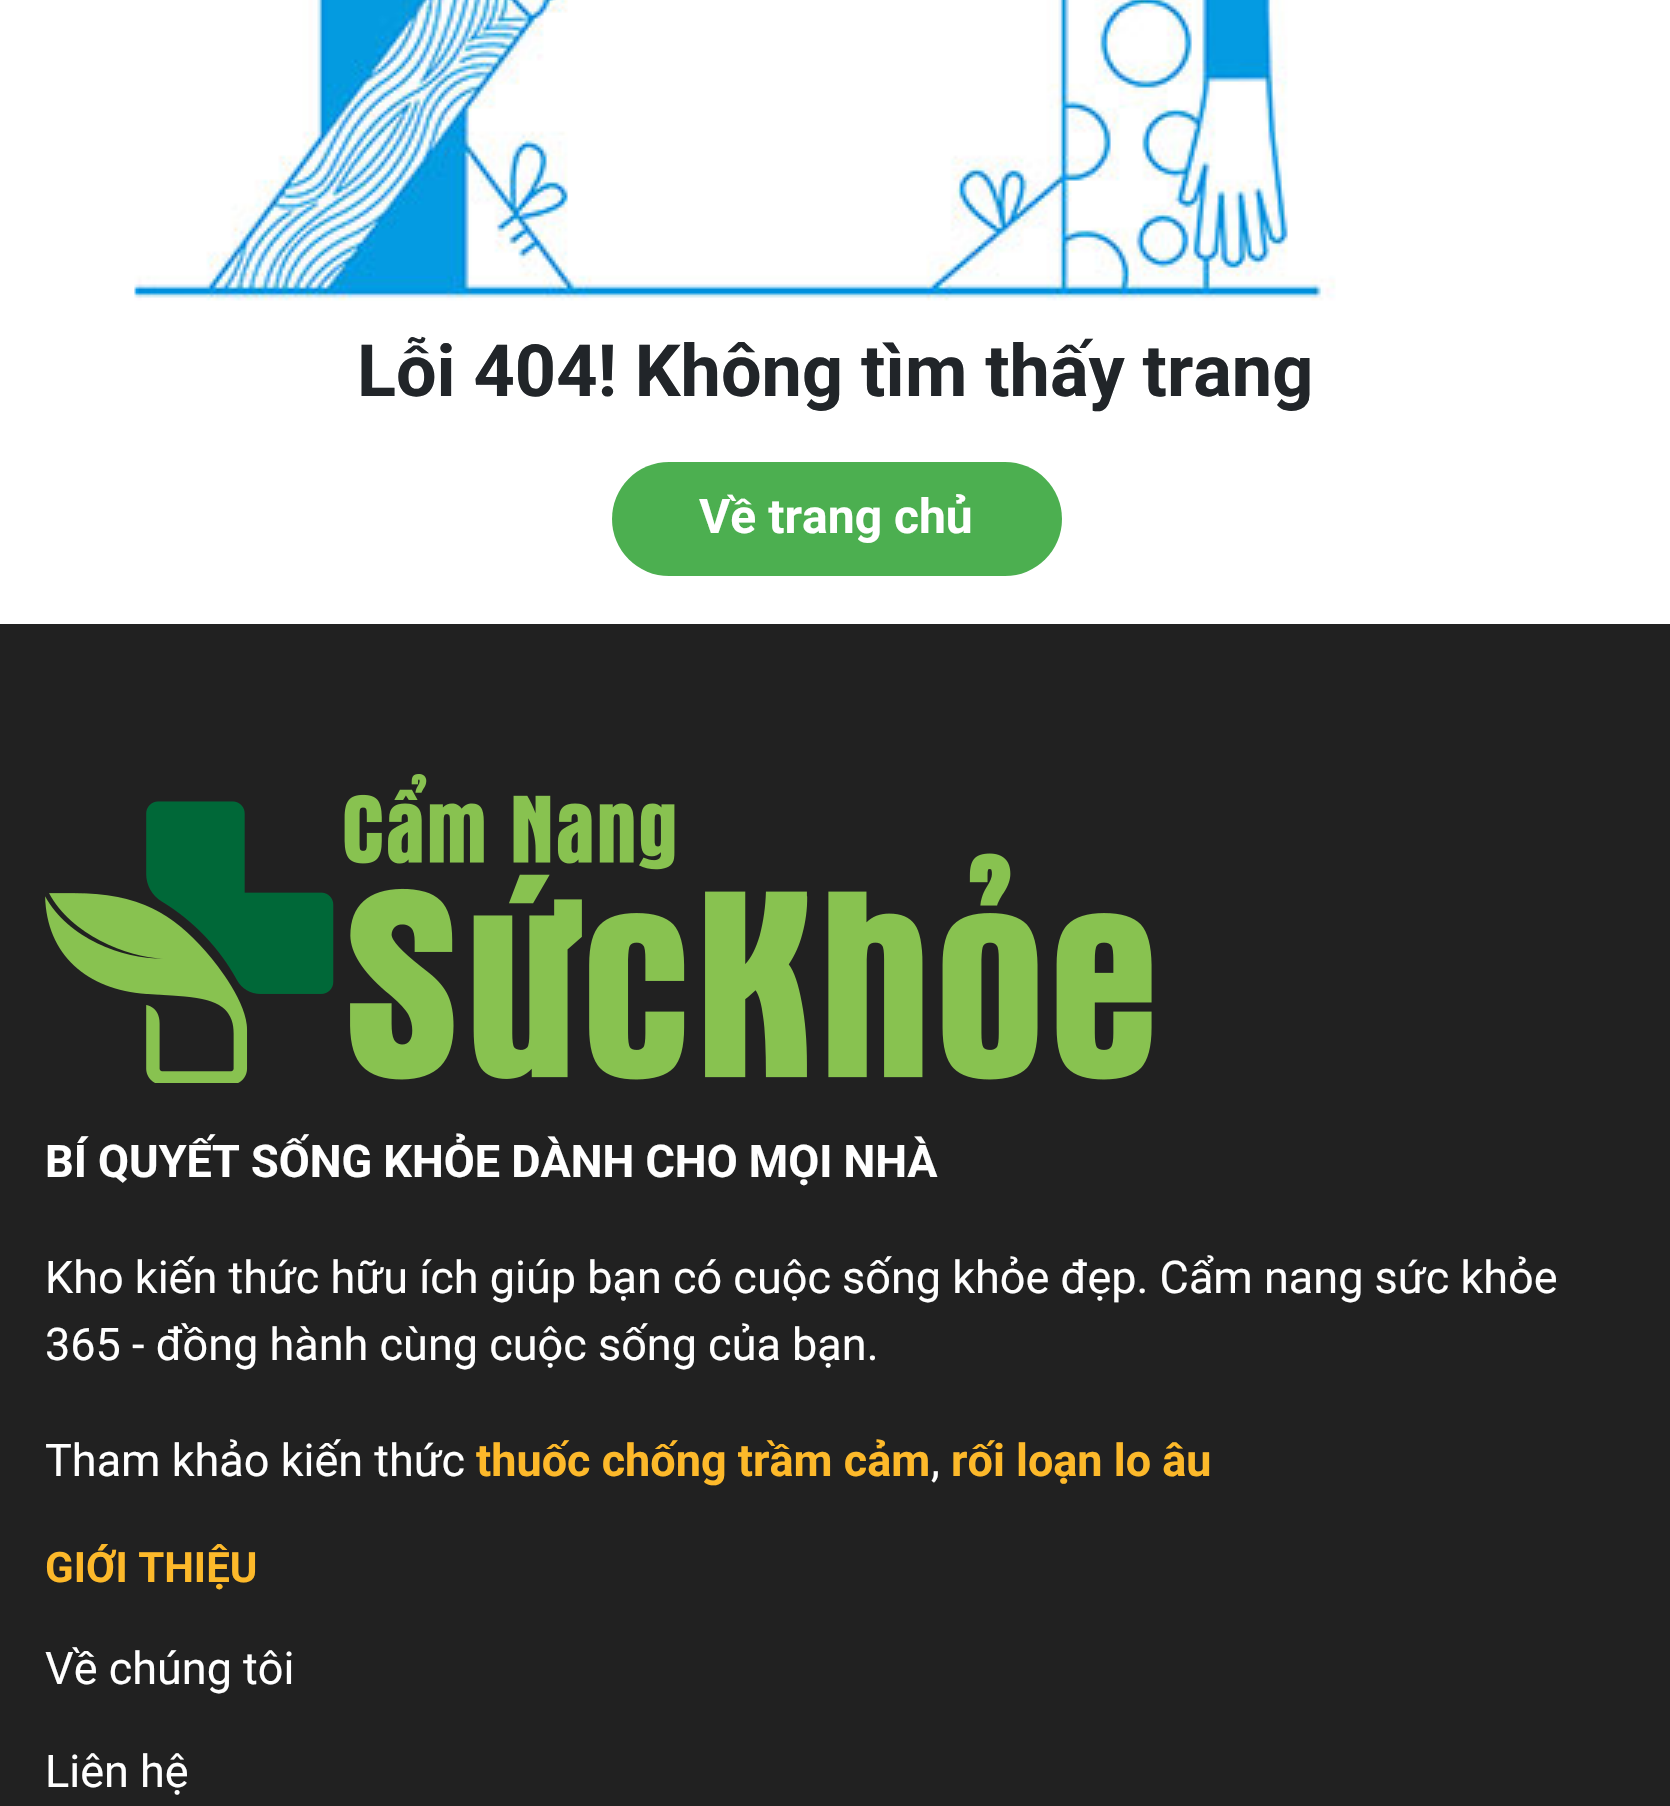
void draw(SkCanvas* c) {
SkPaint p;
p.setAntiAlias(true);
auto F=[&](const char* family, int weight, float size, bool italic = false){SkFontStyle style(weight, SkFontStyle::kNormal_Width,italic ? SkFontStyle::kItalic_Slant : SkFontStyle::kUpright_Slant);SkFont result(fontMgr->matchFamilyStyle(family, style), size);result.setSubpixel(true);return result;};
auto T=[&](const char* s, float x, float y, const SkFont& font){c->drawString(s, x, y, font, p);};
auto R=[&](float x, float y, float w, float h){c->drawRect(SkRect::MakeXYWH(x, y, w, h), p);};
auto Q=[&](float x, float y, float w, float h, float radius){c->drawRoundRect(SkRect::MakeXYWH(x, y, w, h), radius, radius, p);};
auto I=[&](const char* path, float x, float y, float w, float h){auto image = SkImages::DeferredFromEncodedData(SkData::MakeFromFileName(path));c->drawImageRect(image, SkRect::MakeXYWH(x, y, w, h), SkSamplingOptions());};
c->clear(0xffffffff);
I("1.png",134,0,1202,301);
auto f1 = F("Roboto",700,72);
p.setColor(0xff212529);
T("Lỗi 404! Không tìm thấy trang",357,396,f1);
p.setColor(0xff4caf50);
Q(612,462,450,114,57);
auto f2 = F("Roboto",700,48);
p.setColor(0xffffffff);
T("Về trang chủ",699,533,f2);
p.setColor(0xff212121);
R(0,624,1670,1182);
I("2.png",45,774,1107,309);
auto f3 = F("Roboto",700,45);
p.setColor(0xffffffff);
T("BÍ QUYẾT SỐNG KHỎE DÀNH CHO MỌI NHÀ",45,1177,f3);
auto f4 = F("Roboto",400,45);
T("Kho kiến thức hữu ích giúp bạn có cuộc sống khỏe đẹp. Cẩm nang sức khỏe",45,1293,f4);
T("365 - đồng hành cùng cuộc sống của bạn.",45,1360,f4);
T("Tham khảo kiến thức",45,1476,f4);
p.setColor(0xfffdb92a);
T("thuốc chống trầm cảm",476,1476,f3);
p.setColor(0xffffffff);
T(",",931,1476,f4);
p.setColor(0xfffdb92a);
T("rối loạn lo âu",951,1476,f3);
auto f5 = F("Roboto",700,42);
T("GIỚI THIỆU",45,1582,f5);
p.setColor(0xffffffff);
T("Về chúng tôi",45,1684,f4);
T("Liên hệ",45,1787,f4);
}
